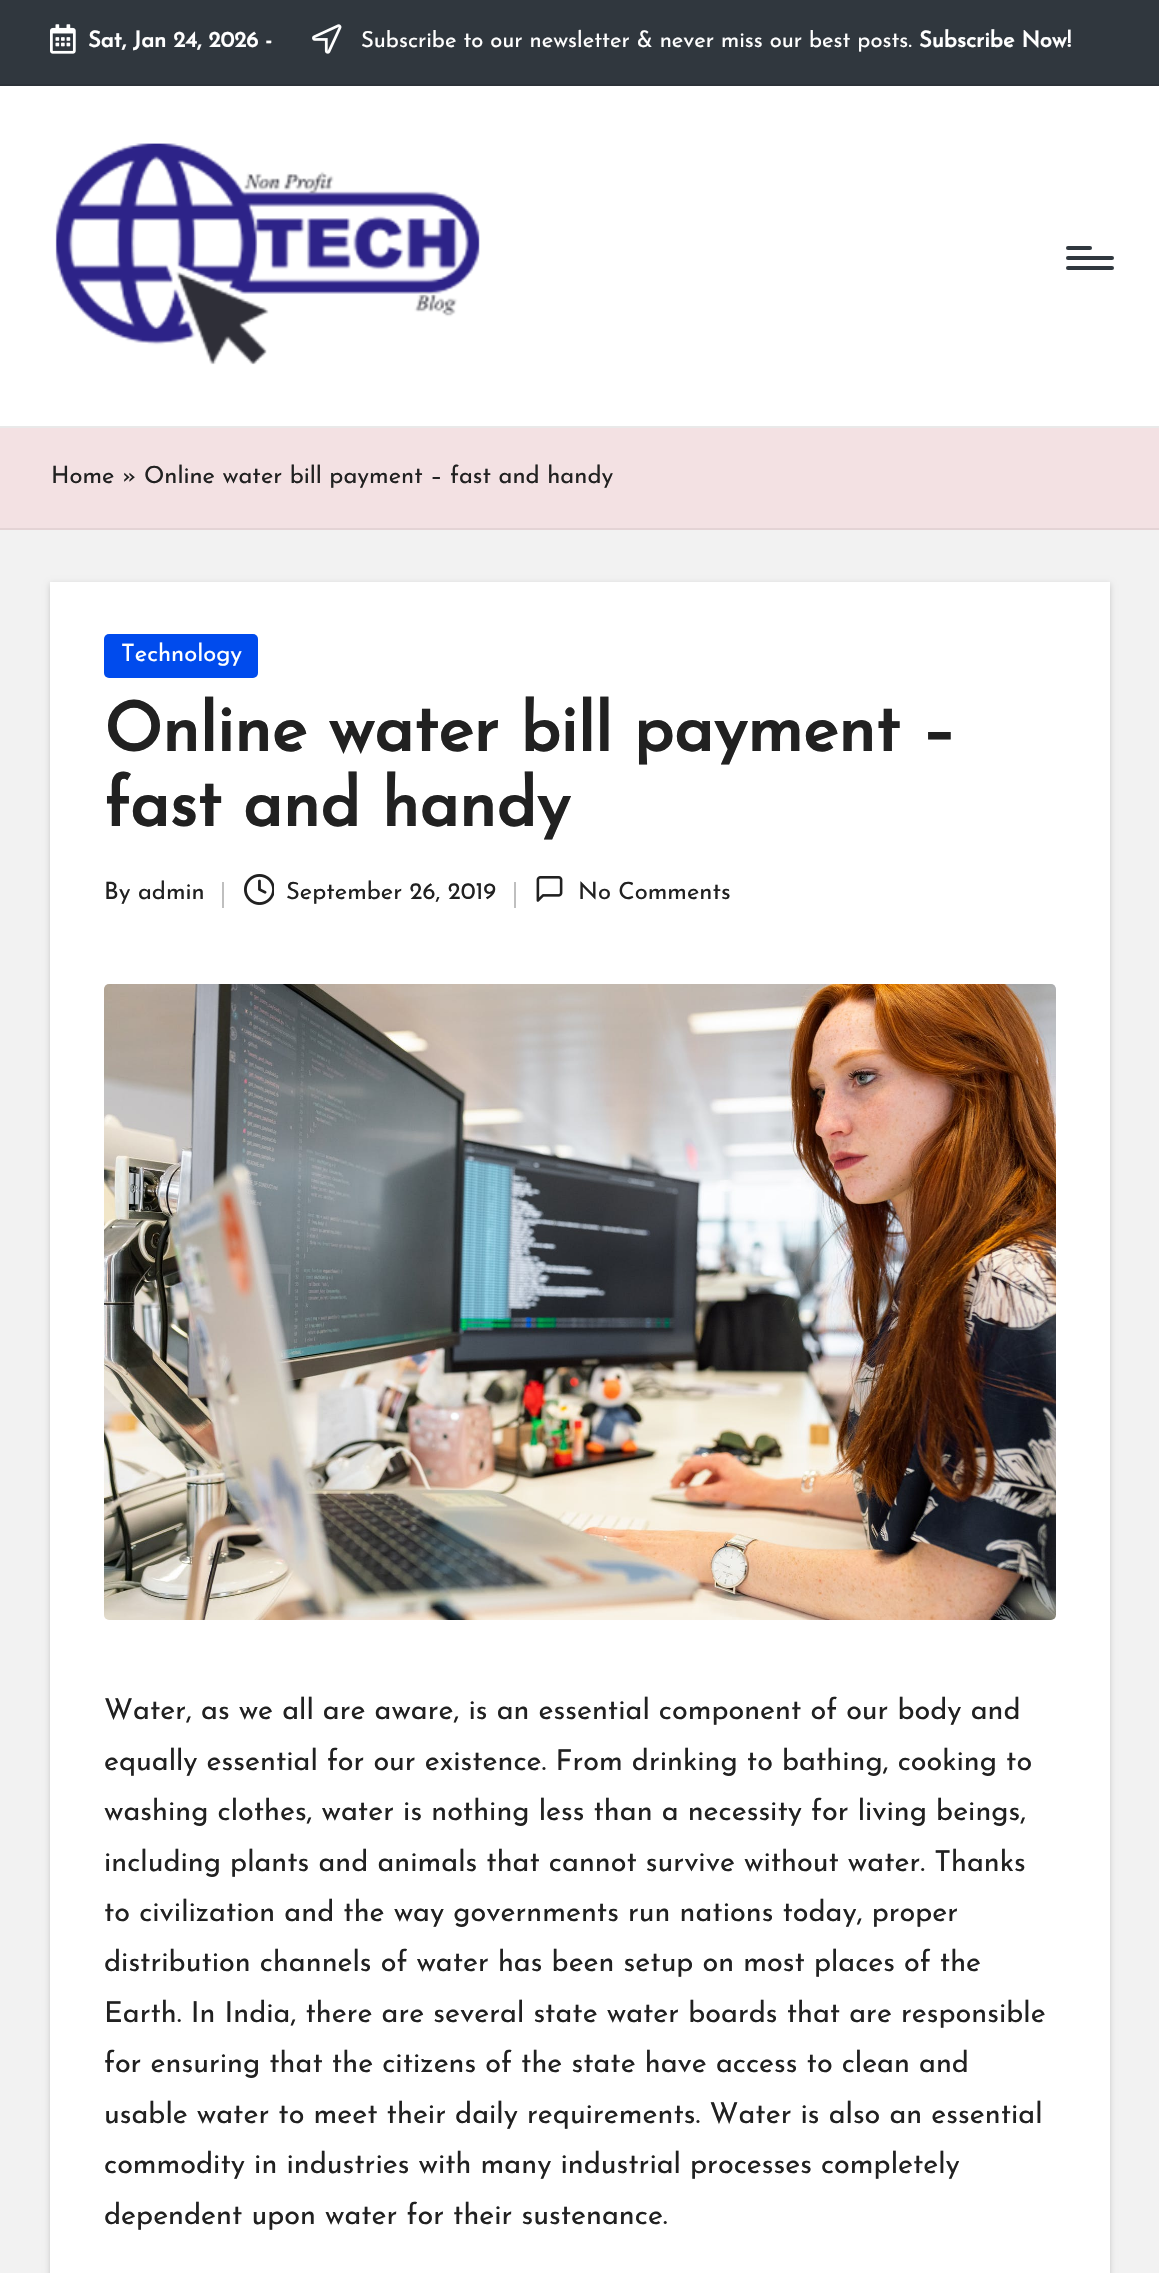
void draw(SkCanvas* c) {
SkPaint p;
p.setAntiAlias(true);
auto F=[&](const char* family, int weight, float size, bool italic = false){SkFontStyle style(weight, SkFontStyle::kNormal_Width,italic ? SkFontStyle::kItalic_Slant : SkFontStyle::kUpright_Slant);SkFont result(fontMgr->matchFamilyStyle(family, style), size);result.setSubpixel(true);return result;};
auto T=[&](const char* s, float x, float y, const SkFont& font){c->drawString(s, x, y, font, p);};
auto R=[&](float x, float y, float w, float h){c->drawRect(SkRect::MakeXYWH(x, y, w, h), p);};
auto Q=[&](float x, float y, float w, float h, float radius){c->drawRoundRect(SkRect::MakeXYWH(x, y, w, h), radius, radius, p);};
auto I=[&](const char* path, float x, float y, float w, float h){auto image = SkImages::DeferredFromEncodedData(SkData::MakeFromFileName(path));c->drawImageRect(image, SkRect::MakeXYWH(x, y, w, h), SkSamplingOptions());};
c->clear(0xfff2f2f2);
p.setColor(0xff30373e);
R(0,0,1159,84);
p.setColor(0xff2c3239);
R(0,84,1159,2);
I("1.png",50,24,26,30);
auto f1 = F("Josefin Sans",700,22.05);
p.setColor(0xffffffff);
T("Sat, Jan 24, 2026 -",88,47,f1);
I("2.png",312,24,30,30);
auto f2 = F("Josefin Sans",100,22.05);
T("Subscribe to our newsletter & never miss our best posts.",361,47,f2);
T("Subscribe Now!",919,47,f1);
R(0,86,1159,340);
p.setColor(0xffe9e9e9);
R(0,426,1159,2);
I("3.png",55,143,425,222);
p.setColor(0xff30373e);
Q(1066,256,48,4,2);
Q(1066,246,26,4,2);
Q(1066,266,48,4,2);
p.setColor(0xfff3e1e3);
R(0,428,1159,100);
p.setColor(0xffe4d3d5);
R(0,528,1159,2);
auto f3 = F("Josefin Sans",100,23.75);
p.setColor(0xff212121);
T("Home",51,483,f3);
T("» Online water bill payment – fast and handy",122,483,f3);
p.setColor(0x2e000000);
p.setMaskFilter(SkMaskFilter::MakeBlur(kNormal_SkBlurStyle, 3));
c->drawRect(SkRect::MakeXYWH(50,584,1060,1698),p);
p.setMaskFilter(nullptr);
p.setColor(0xffffffff);
R(50,582,1060,1691);
p.setColor(0xff004bed);
Q(104,634,154,44,5);
p.setColor(0xffffffff);
T("Technology",121,661,f3);
auto f4 = F("Josefin Sans",700,67.8);
p.setColor(0xff212121);
T("Online water bill payment –",104,751,f4);
T("fast and handy",104,826,f4);
T("By admin",104,899,f3);
p.setColor(0xffbfbfbf);
R(222,882,2,26);
I("4.png",244,874,30,31);
p.setColor(0xff212121);
T("September 26, 2019",286,899,f3);
p.setColor(0xffbfbfbf);
R(514,882,2,26);
I("5.png",536,876,27,26);
p.setColor(0xff212121);
T("No Comments",578,899,f3);
I("6.png",104,984,952,636);
auto f5 = F("Josefin Sans",100,28.8);
T("Water, as we all are aware, is an essential component of our body and",104,1719,f5);
T("equally essential for our existence. From drinking to bathing, cooking to",104,1770,f5);
T("washing clothes, water is nothing less than a necessity for living beings,",104,1820,f5);
T("including plants and animals that cannot survive without water. Thanks",104,1871,f5);
T("to civilization and the way governments run nations today, proper",104,1921,f5);
T("distribution channels of water has been setup on most places of the",104,1971,f5);
T("Earth. In India, there are several state water boards that are responsible",104,2022,f5);
T("for ensuring that the citizens of the state have access to clean and",104,2072,f5);
T("usable water to meet their daily requirements. Water is also an essential",104,2123,f5);
T("commodity in industries with many industrial processes completely",104,2173,f5);
T("dependent upon water for their sustenance.",104,2224,f5);
}
